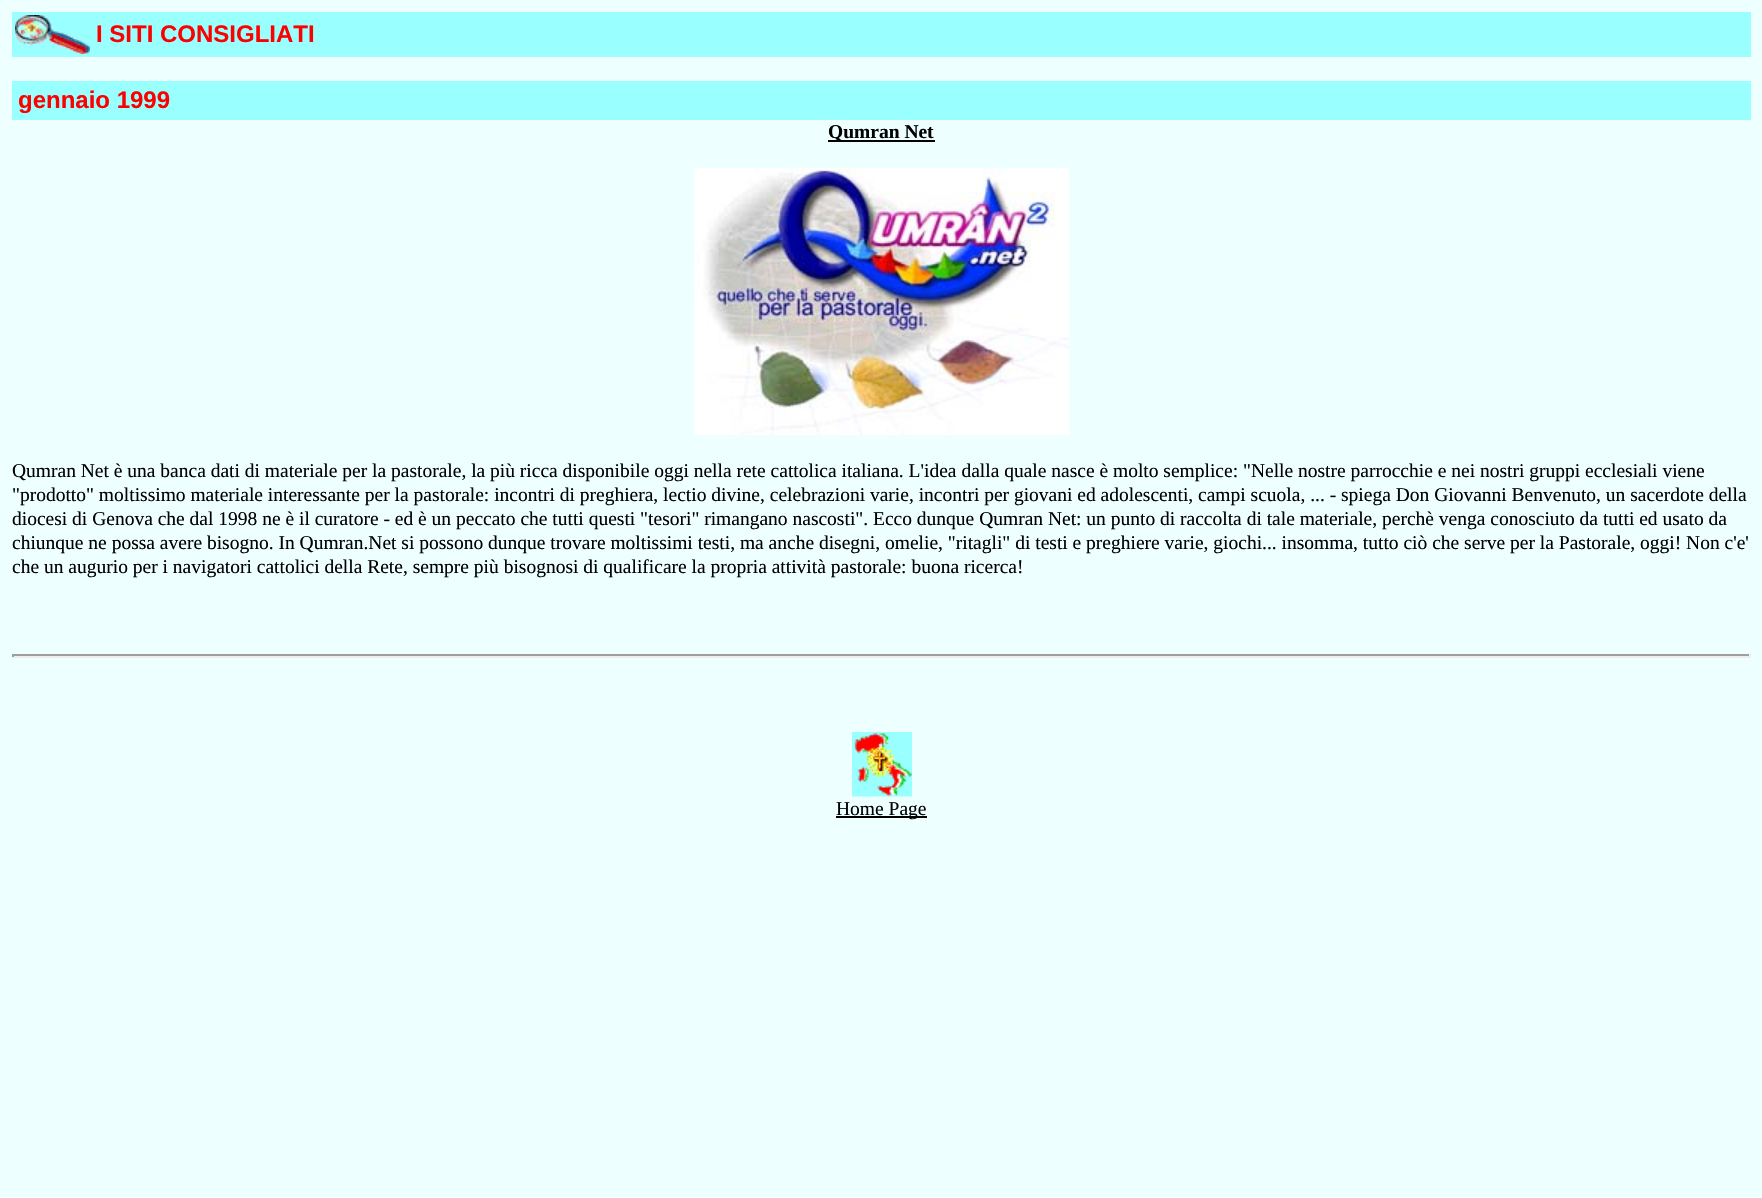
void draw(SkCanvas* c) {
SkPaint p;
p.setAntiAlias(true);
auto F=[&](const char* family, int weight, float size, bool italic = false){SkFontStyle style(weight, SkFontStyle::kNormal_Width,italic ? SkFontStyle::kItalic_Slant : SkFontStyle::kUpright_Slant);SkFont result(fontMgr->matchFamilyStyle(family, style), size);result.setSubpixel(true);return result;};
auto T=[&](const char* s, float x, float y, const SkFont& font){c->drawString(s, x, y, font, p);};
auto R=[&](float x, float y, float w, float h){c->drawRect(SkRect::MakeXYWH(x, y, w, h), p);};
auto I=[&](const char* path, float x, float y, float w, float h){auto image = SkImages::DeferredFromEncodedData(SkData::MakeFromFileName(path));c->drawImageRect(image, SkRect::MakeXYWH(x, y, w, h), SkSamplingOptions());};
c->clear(0xffeeffff);
p.setColor(0xff99ffff);
R(12,12,1739,45);
I("1.png",15,15,75,39);
auto f1 = F("Liberation Sans",700,24);
p.setColor(0xffff0000);
T("I SITI CONSIGLIATI",96,42,f1);
p.setColor(0xff99ffff);
R(12,81,1739,39);
p.setColor(0xffff0000);
T("gennaio 1999",18,108,f1);
p.setColor(0xff000000);
R(828,140,107,2);
auto f2 = F("Liberation Serif",700,19.5);
T("Qumran Net",828,138,f2);
I("2.png",694,168,376,267);
auto f3 = F("Liberation Serif",400,19.5);
T("Qumran Net è una banca dati di materiale per la pastorale, la più ricca disponibile oggi nella rete cattolica italiana. L'idea dalla quale nasce è molto semplice: \"Nelle nostre parrocchie e nei nostri gruppi ecclesiali viene",12,477,f3);
T("\"prodotto\" moltissimo materiale interessante per la pastorale: incontri di preghiera, lectio divine, celebrazioni varie, incontri per giovani ed adolescenti, campi scuola, ... - spiega Don Giovanni Benvenuto, un sacerdote della",12,501,f3);
T("diocesi di Genova che dal 1998 ne è il curatore - ed è un peccato che tutti questi \"tesori\" rimangano nascosti\". Ecco dunque Qumran Net: un punto di raccolta di tale materiale, perchè venga conosciuto da tutti ed usato da",12,525,f3);
T("chiunque ne possa avere bisogno. In Qumran.Net si possono dunque trovare moltissimi testi, ma anche disegni, omelie, \"ritagli\" di testi e preghiere varie, giochi... insomma, tutto ciò che serve per la Pastorale, oggi! Non c'e'",12,549,f3);
T("che un augurio per i navigatori cattolici della Rete, sempre più bisognosi di qualificare la propria attività pastorale: buona ricerca!",12,573,f3);
p.setColor(0xff9f9f9f);
R(12,654,1739,2);
p.setColor(0xffeeeeee);
R(1749,654,2,3);
R(12,656,1739,2);
p.setColor(0xff9f9f9f);
R(12,654,2,3);
I("3.png",852,732,60,65);
p.setColor(0xff000000);
R(836,816,91,2);
T("Home Page",836,815,f3);
}
